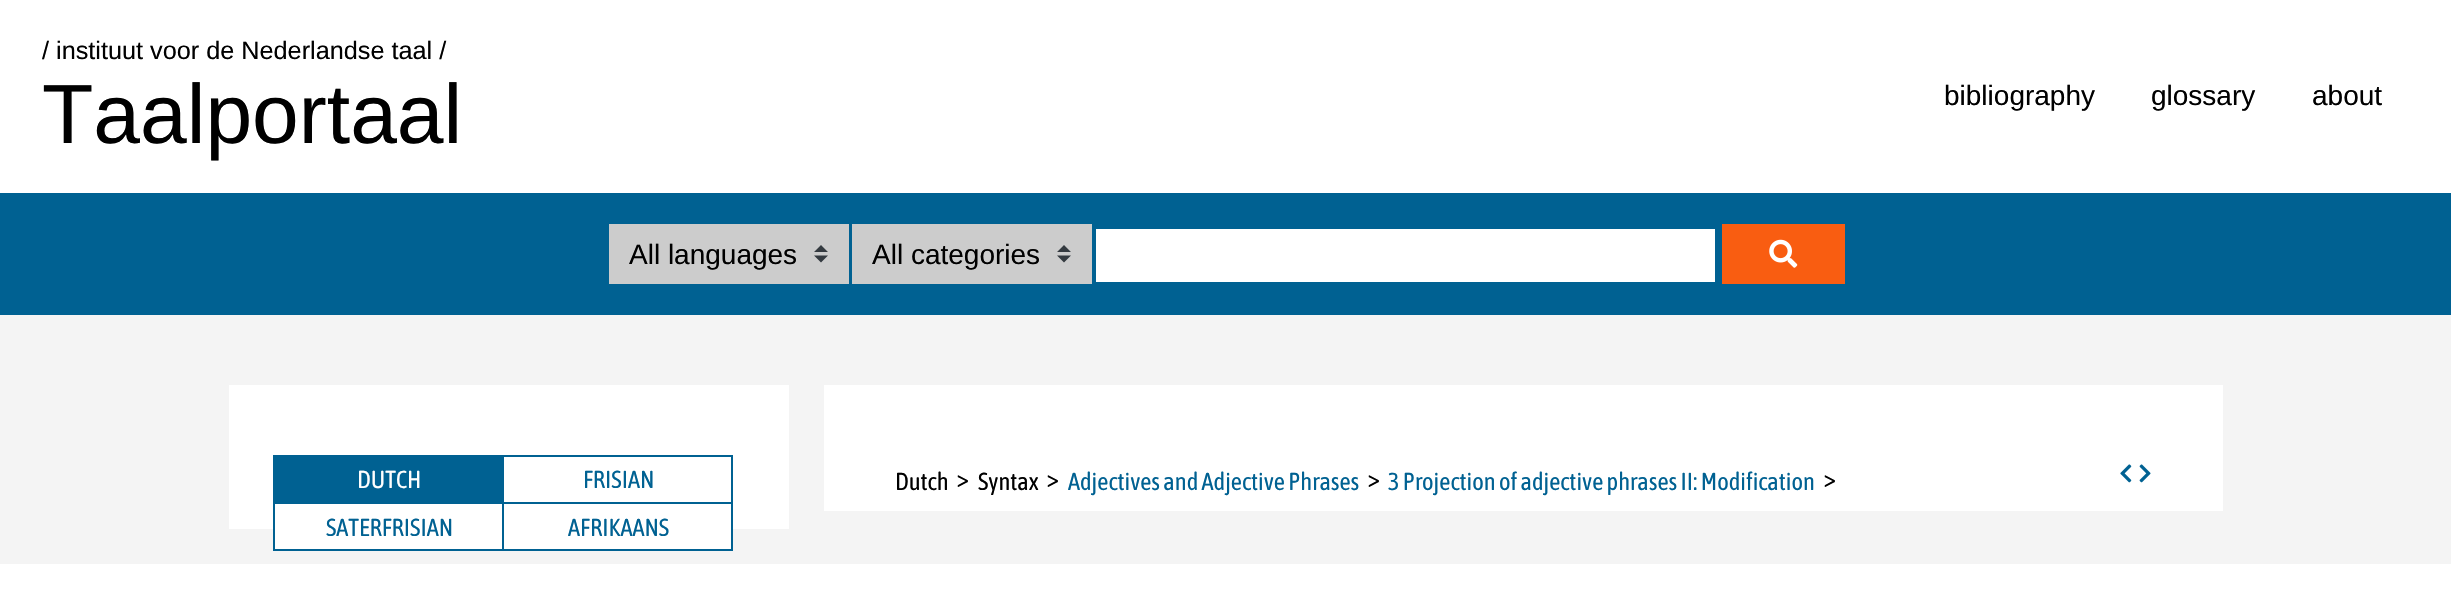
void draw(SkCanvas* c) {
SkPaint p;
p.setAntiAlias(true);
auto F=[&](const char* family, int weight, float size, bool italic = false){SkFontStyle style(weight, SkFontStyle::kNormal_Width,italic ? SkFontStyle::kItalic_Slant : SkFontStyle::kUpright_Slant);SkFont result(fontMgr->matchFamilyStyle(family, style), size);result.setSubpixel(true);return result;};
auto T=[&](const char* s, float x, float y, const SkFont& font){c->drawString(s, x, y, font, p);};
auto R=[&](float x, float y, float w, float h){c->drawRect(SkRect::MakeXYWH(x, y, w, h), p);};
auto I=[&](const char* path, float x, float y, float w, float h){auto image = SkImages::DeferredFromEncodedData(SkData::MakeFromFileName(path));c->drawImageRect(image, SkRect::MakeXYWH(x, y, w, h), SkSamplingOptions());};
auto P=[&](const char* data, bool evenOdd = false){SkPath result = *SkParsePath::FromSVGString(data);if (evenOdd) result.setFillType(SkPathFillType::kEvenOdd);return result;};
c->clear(0xffffffff);
auto f1 = F("Liberation Sans",400,25.25);
p.setColor(0xff000000);
T("/ instituut voor de Nederlandse taal /",42,59,f1);
auto f2 = F("Liberation Sans",400,84);
T("Taalportaal",42,143,f2);
auto f3 = F("Liberation Sans",400,28);
T("bibliography",1944,105,f3);
T("glossary",2151,105,f3);
T("about",2312,105,f3);
p.setColor(0xff006192);
R(0,193,2451,122);
p.setColor(0xffcccccc);
R(609,224,240,60);
p.setColor(0xff343a40);
c->drawPath(P("M821 245l-7 7h14zm0 17.5l-7-7h14z"),p);
p.setColor(0xff000000);
T("All languages",629,264,f3);
p.setColor(0xffcccccc);
R(852,224,240,60);
p.setColor(0xff343a40);
c->drawPath(P("M1064 245l-7 7h14zm0 17.5l-7-7h14z"),p);
p.setColor(0xff000000);
T("All categories",872,264,f3);
p.setColor(0xffffffff);
R(1096,229,619,53);
p.setColor(0xfff95d11);
R(1722,224,123,60);
I("1.png",1769,239,29,29);
p.setColor(0xfff4f4f4);
R(0,315,2451,249);
p.setColor(0xffffffff);
R(229,385,560,144);
p.setColor(0xff006192);
R(273,455,229,47);
auto f4 = F("Asap Condensed",400,24.5);
p.setColor(0xffffffff);
T("DUTCH",357,488,f4);
p.setStroke(true);
p.setStrokeWidth(2);
p.setColor(0xff006192);
c->drawRect(SkRect::MakeXYWH(503,456,229,47),p);
p.setStroke(false);
T("FRISIAN",583,488,f4);
p.setColor(0xffffffff);
R(275,529,227,20);
p.setStroke(true);
p.setColor(0xff006192);
c->drawRect(SkRect::MakeXYWH(274,503,229,47),p);
p.setStroke(false);
T("SATERFRISIAN",326,536,f4);
p.setColor(0xffffffff);
R(504,529,227,20);
p.setStroke(true);
p.setColor(0xff006192);
c->drawRect(SkRect::MakeXYWH(503,503,229,47),p);
p.setStroke(false);
T("AFRIKAANS",568,536,f4);
p.setColor(0xffffffff);
R(824,385,1399,126);
p.setColor(0xff000000);
T("Dutch",895,490,f4);
auto f5 = F("Asap Condensed",400,26);
T(">",957,487,f5);
T("Syntax",978,490,f4);
T(">",1047,487,f5);
p.setColor(0xff006192);
T("Adjectives and Adjective Phrases",1068,490,f4);
p.setColor(0xff000000);
T(">",1368,487,f5);
p.setColor(0xff006192);
T("3 Projection of adjective phrases II: Modification",1388,490,f4);
p.setColor(0xff000000);
T(">",1824,487,f5);
I("2.png",2120,464,12,19);
I("3.png",2139,464,12,19);
}
